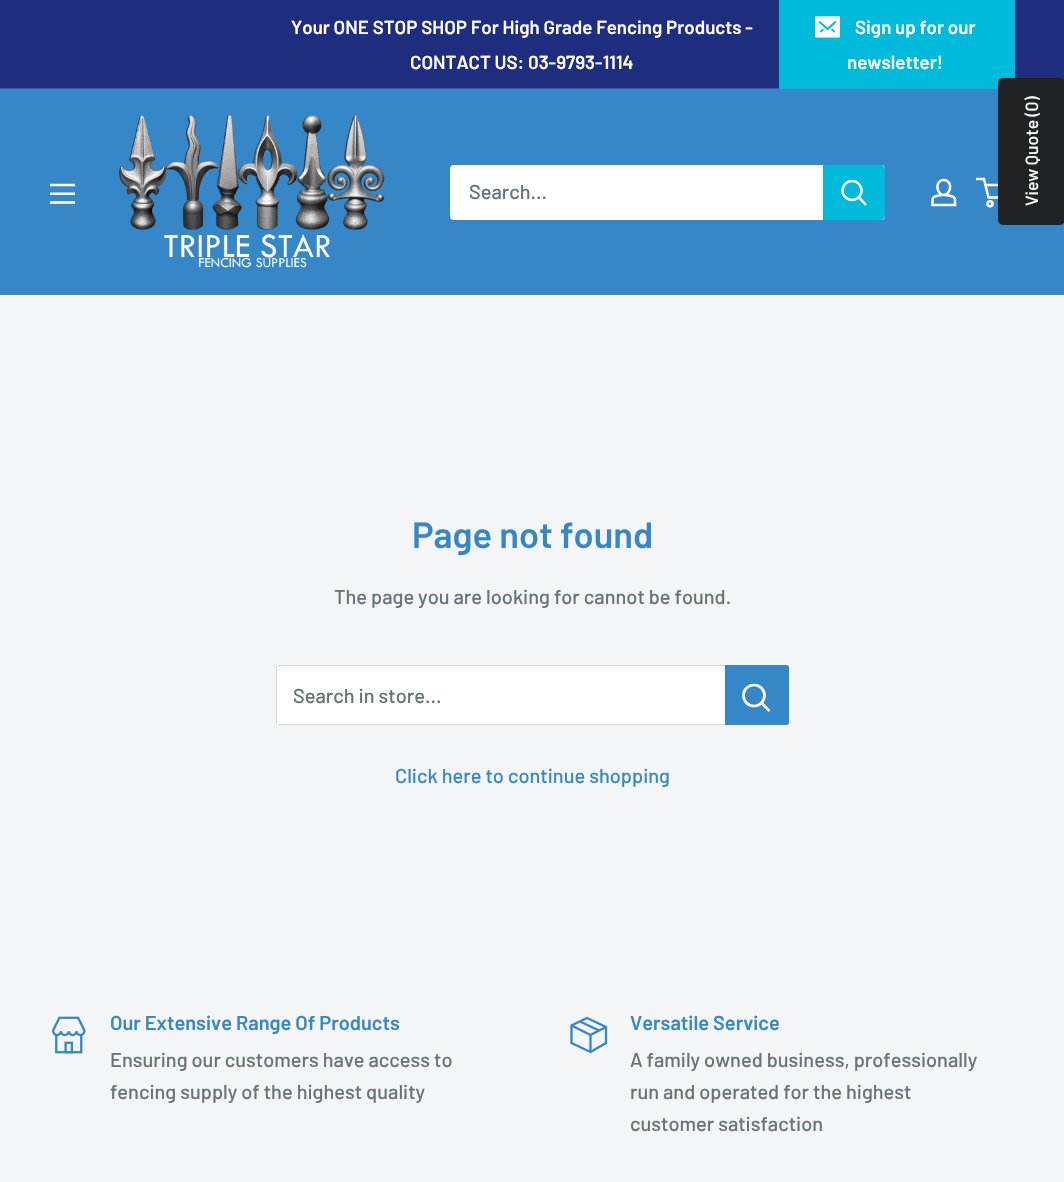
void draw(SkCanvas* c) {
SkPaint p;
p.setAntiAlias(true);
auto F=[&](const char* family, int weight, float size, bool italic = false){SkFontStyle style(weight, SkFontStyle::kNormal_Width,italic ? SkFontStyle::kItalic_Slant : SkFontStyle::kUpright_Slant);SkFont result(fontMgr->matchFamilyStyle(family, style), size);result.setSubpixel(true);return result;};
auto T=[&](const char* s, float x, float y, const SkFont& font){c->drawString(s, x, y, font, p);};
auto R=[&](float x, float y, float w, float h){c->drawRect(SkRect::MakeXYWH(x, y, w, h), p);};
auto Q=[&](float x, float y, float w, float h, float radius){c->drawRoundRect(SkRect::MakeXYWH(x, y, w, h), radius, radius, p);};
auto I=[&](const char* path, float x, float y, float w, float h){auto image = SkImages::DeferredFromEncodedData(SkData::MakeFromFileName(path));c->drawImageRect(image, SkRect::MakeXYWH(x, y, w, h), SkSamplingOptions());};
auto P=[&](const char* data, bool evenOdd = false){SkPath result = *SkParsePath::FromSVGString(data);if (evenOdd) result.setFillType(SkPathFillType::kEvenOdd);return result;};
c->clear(0xfff3f5f6);
p.setColor(0xff1e2d7d);
R(0,0,1064,88);
p.setColor(0xff46549f);
R(0,88,779,1);
auto f1 = F("Barlow",600,18.75);
p.setColor(0xffffffff);
T("Your ONE STOP SHOP For High Grade Fencing Products -",291,34,f1);
T("CONTACT US: 03-9793-1114",410,69,f1);
p.setColor(0xff00badb);
R(779,88,219,1);
R(779,0,236,88);
I("1.png",815,16,25,22);
p.setColor(0xffffffff);
T("Sign up for our",855,34,f1);
T("newsletter!",847,69,f1);
p.setColor(0xff3687c8);
R(0,89,1064,206);
I("2.png",50,183,25,21);
I("3.png",119,115,266,153);
p.setColor(0xffffffff);
Q(450,165,435,55,4);
auto f2 = F("Barlow",500,20);
p.setColor(0xff677279);
T("Search...",469,199,f2);
p.setColor(0xff00badb);
c->drawPath(P("M823 165h58c2 0 4 2 4 4v47c0 2-2 4-4 4h-58z"),p);
p.setStroke(true);
p.setStrokeWidth(2.5);
p.setStrokeCap(SkPaint::kSquare_Cap);
p.setColor(0xffffffff);
c->drawPath(P("M865 204l-6-6.5"),p);
p.setStrokeCap(SkPaint::kButt_Cap);
c->drawCircle(852,190.5,9.5,p);
I("4.png",931,178,26,29);
c->drawCircle(990,203.8,2.5,p);
c->drawPath(P("M985.5 185h22.5l-1.5 12.5h-18l-4.5-18.5h-8"),p);
p.setStroke(false);
p.setColor(0xff202223);
c->drawPath(P("M998 220v-137c0-3 2-5 5-5h57c3 0 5 2 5 5v137c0 2-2 5-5 5h-57c-3 0-5-3-5-5z"),p);
auto f3 = F("Barlow",500,17.5);
p.setColor(0xffffffff);
c->save();
c->rotate(-90,1038,206);
T("View Quote (0)",1038,206,f3);
c->restore();
auto f4 = F("Barlow",600,36.25);
p.setColor(0xff3687c8);
T("Page not found",412,548,f4);
p.setColor(0xff677279);
T("The page you are looking for cannot be found.",334,604,f2);
p.setColor(0xffffffff);
c->drawPath(P("M278.5 665h446.5v60h-446.5c-1.5 0-2.5-1-2.5-2.5v-55c0-1.5 1-2.5 2.5-2.5z"),p);
p.setColor(0xfff8f8f8);
c->drawPath(P("M279 668h446v-2h-447v3c0-1 0-1 1-1z"),p);
p.setColor(0xffd4d6d8);
R(278,665,447,1);
R(278,724,447,1);
R(276,666,1,58);
p.setColor(0xff677279);
T("Search in store...",293,703,f2);
p.setColor(0xff3687c8);
c->drawPath(P("M725 665h61.5c1.5 0 2.5 1 2.5 2.5v55c0 1.5-1 2.5-2.5 2.5h-61.5z"),p);
p.setStroke(true);
p.setStrokeWidth(2.7);
p.setStrokeCap(SkPaint::kSquare_Cap);
p.setColor(0xffffffff);
c->drawPath(P("M768.5 710l-7-7"),p);
p.setStrokeCap(SkPaint::kButt_Cap);
c->drawCircle(754,695.5,10.5,p);
p.setStroke(false);
p.setColor(0xff3687c8);
T("Click here to continue shopping",395,783,f2);
I("5.png",52,1016,34,38);
auto f5 = F("Barlow",600,20);
T("Our Extensive Range Of Products",110,1030,f5);
p.setColor(0xff677279);
T("Ensuring our customers have access to",110,1067,f2);
T("fencing supply of the highest quality",110,1099,f2);
p.setStroke(true);
p.setStrokeWidth(2.3);
p.setColor(0xff3687c8);
c->drawPath(P("M580 1021.5l19 9m7-3.5l-15.5 8l-19-9.5m19 9.5v17"),p);
p.setStrokeCap(SkPaint::kSquare_Cap);
c->drawPath(P("M606 1027v16l-15.5 9l-19-9v-17.5l15.5-7.5z"),p);
p.setStroke(false);
T("Versatile Service",630,1030,f5);
p.setColor(0xff677279);
T("A family owned business, professionally",630,1067,f2);
T("run and operated for the highest",630,1099,f2);
T("customer satisfaction",630,1131,f2);
}
